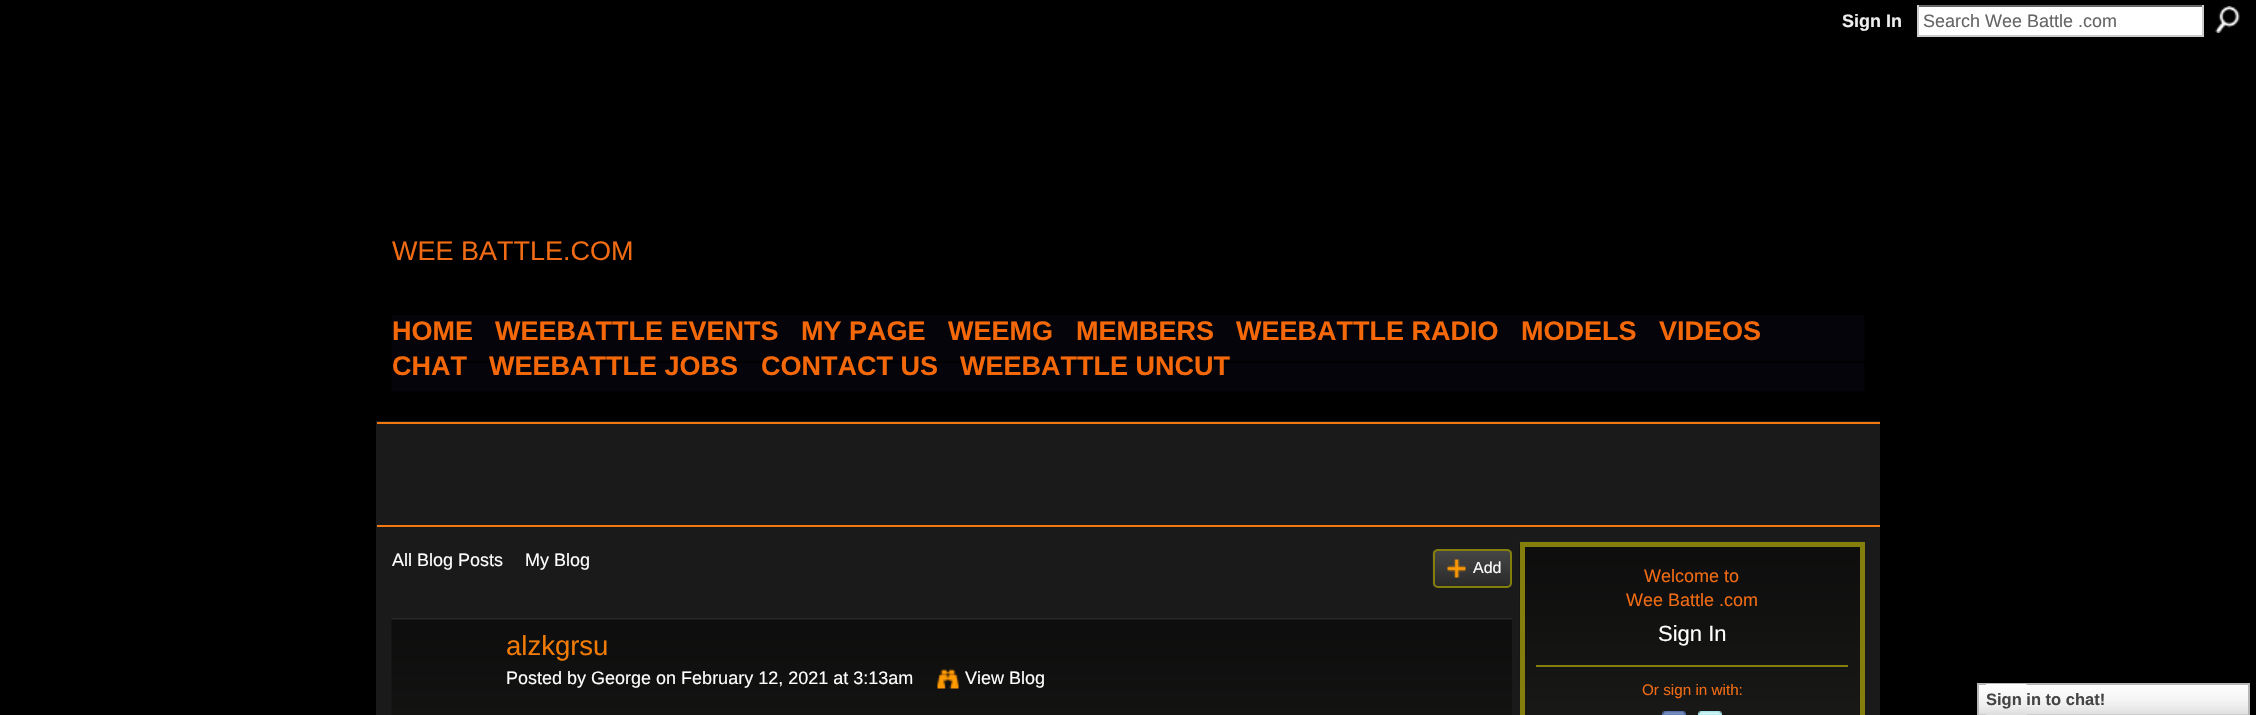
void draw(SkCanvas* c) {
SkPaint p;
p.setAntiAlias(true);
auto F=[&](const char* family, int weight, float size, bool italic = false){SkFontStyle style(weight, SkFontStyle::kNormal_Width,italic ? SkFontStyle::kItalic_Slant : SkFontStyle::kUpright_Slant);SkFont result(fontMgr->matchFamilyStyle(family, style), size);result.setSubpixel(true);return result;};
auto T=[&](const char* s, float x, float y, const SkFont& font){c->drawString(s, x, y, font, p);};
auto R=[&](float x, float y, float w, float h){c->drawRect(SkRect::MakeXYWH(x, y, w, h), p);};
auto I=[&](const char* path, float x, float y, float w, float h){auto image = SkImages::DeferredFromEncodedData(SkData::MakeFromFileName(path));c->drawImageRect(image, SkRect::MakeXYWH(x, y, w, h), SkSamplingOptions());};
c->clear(0xff000000);
auto f1 = F("Liberation Sans",700,18);
p.setColor(0xffeeeeee);
T("Sign In",1842,27,f1);
p.setColor(0xffffffff);
R(1919,7,283,28);
p.setColor(0xff666666);
R(1917,5,287,2);
p.setColor(0xffcccccc);
R(2202,5,2,31);
R(1917,35,287,2);
R(1917,5,2,31);
auto f2 = F("Liberation Sans",400,18);
p.setColor(0xff666666);
T("Search Wee Battle .com",1923,27,f2);
I("1.png",2215,6,25,27);
auto f3 = F("Liberation Sans",400,27);
p.setColor(0xfff06b13);
T("WEE BATTLE.COM",392,260,f3);
I("2.png",391,315,1474,77);
auto f4 = F("Liberation Sans",700,27);
p.setColor(0xfff5680a);
T("HOME",392,340,f4);
T("WEEBATTLE EVENTS",495,340,f4);
T("MY PAGE",801,340,f4);
T("WEEMG",948,340,f4);
T("MEMBERS",1076,340,f4);
T("WEEBATTLE RADIO",1236,340,f4);
T("MODELS",1521,340,f4);
T("VIDEOS",1659,340,f4);
T("CHAT",392,375,f4);
T("WEEBATTLE JOBS",489,375,f4);
T("CONTACT US",761,375,f4);
T("WEEBATTLE UNCUT",960,375,f4);
p.setColor(0xff1a1a1a);
R(376,421,1504,294);
p.setColor(0xfff0780e);
R(377,422,1503,2);
R(377,525,1503,2);
p.setColor(0xffffffff);
T("All Blog Posts",392,566,f2);
T("My Blog",525,566,f2);
I("3.png",1432,550,80,38);
p.setStroke(true);
p.setStrokeWidth(2);
p.setColor(0xff847f0c);
c->drawRoundRect(SkRect::MakeXYWH(1434,550,77,37),4,4,p);
I("4.png",1447,559,19,19);
auto f5 = F("Liberation Sans",400,16);
p.setStroke(false);
p.setColor(0xffffffff);
T("Add",1473,573,f5);
I("5.png",391,618,1121,97);
auto f6 = F("Liberation Sans",400,27.5);
p.setColor(0xfff27b05);
T("alzkgrsu",506,655,f6);
p.setColor(0xffffffff);
T("Posted by George on February 12, 2021 at 3:13am",506,684,f2);
I("6.png",937,668,22,21);
T("View Blog",965,684,f2);
I("7.png",1519,541,346,174);
p.setStroke(true);
p.setStrokeWidth(5);
p.setColor(0xff847f0c);
c->drawRect(SkRect::MakeXYWH(1522.5,544.5,340,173),p);
p.setStroke(false);
p.setColor(0xfff06b13);
T("Welcome to",1644,582,f2);
T("Wee Battle .com",1626,606,f2);
auto f7 = F("Liberation Sans",400,22);
p.setColor(0xffffffff);
T("Sign In",1658,641,f7);
p.setColor(0xff847f0c);
R(1536,665,312,2);
auto f8 = F("Liberation Sans",400,15.25);
p.setColor(0xfff06b13);
T("Or sign in with:",1642,695,f8);
I("8.png",1662,711,24,4);
I("9.png",1698,711,24,4);
I("10.png",1979,685,269,30);
p.setStroke(true);
p.setStrokeWidth(2);
p.setColor(0xffb7b7b7);
c->drawRect(SkRect::MakeXYWH(1978,684,271,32),p);
I("11.png",1986,684,41,31);
auto f9 = F("Liberation Sans",700,16.5);
p.setStroke(false);
p.setColor(0xff454545);
T("Sign in to chat!",1986,705,f9);
}
